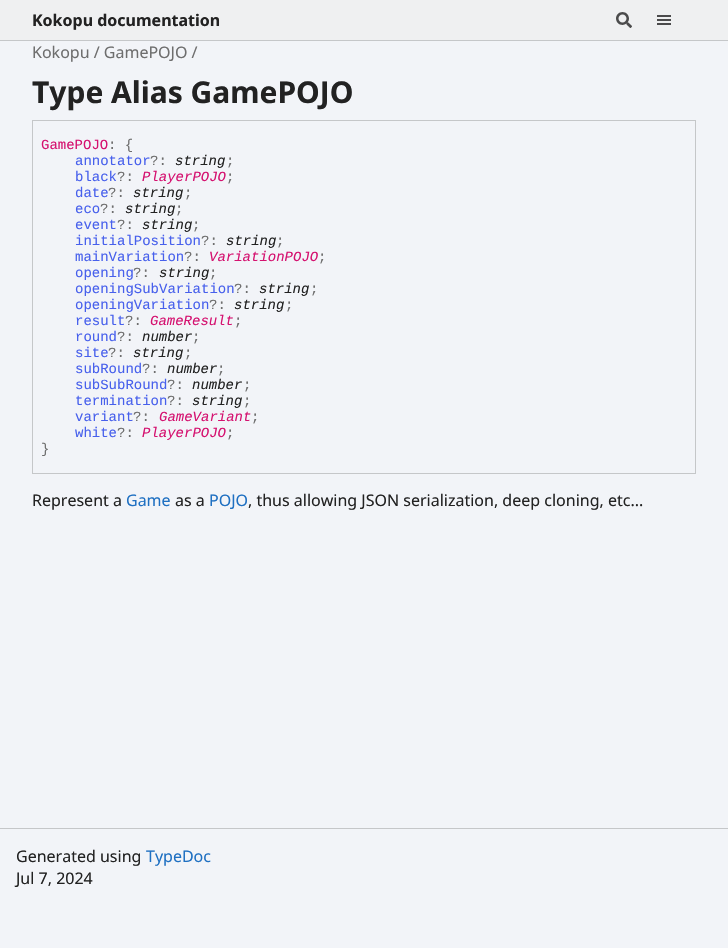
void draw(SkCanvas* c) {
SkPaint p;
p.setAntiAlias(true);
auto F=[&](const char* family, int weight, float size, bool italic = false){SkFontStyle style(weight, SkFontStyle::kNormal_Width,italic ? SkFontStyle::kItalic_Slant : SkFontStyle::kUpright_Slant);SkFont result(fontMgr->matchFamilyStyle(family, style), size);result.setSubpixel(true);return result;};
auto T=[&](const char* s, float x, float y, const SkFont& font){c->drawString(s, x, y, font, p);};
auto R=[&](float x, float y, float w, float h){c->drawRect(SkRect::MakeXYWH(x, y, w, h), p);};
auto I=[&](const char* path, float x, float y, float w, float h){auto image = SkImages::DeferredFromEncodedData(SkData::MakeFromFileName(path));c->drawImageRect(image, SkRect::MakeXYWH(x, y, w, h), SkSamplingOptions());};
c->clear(0xfff2f4f8);
p.setColor(0xffeff0f1);
R(0,0,728,40);
p.setColor(0xffc5c7c9);
R(0,40,728,1);
auto f1 = F("Noto Sans",700,16);
p.setColor(0xff222222);
T("Kokopu documentation",32,26,f1);
I("1.png",616,12,16,16);
I("2.png",657,15,14,10);
auto f2 = F("Noto Sans",400,16);
p.setColor(0xff6e6e6e);
T("Kokopu / GamePOJO /",32,58,f2);
auto f3 = F("Noto Sans",700,30);
p.setColor(0xff222222);
T("Type Alias GamePOJO",32,103,f3);
p.setStroke(true);
p.setStrokeWidth(1);
p.setColor(0xffc5c7c9);
c->drawRect(SkRect::MakeXYWH(32.5,120.5,663,353),p);
auto f4 = F("Liberation Mono",400,14);
p.setStroke(false);
p.setColor(0xffd51270);
T("GamePOJO",41,149,f4);
p.setColor(0xff6e6e6e);
T(": {",108,149,f4);
p.setColor(0xff4760ec);
T("annotator",75,165,f4);
p.setColor(0xff6e6e6e);
T("?:",150,165,f4);
auto f5 = F("Liberation Mono",400,14,true);
p.setColor(0xff222222);
T("string",175,165,f5);
p.setColor(0xff6e6e6e);
T(";",226,165,f4);
p.setColor(0xff4760ec);
T("black",75,181,f4);
p.setColor(0xff6e6e6e);
T("?:",117,181,f4);
p.setColor(0xffd51270);
T("PlayerPOJO",142,181,f5);
p.setColor(0xff6e6e6e);
T(";",226,181,f4);
p.setColor(0xff4760ec);
T("date",75,197,f4);
p.setColor(0xff6e6e6e);
T("?:",108,197,f4);
p.setColor(0xff222222);
T("string",133,197,f5);
p.setColor(0xff6e6e6e);
T(";",184,197,f4);
p.setColor(0xff4760ec);
T("eco",75,213,f4);
p.setColor(0xff6e6e6e);
T("?:",100,213,f4);
p.setColor(0xff222222);
T("string",125,213,f5);
p.setColor(0xff6e6e6e);
T(";",175,213,f4);
p.setColor(0xff4760ec);
T("event",75,229,f4);
p.setColor(0xff6e6e6e);
T("?:",117,229,f4);
p.setColor(0xff222222);
T("string",142,229,f5);
p.setColor(0xff6e6e6e);
T(";",192,229,f4);
p.setColor(0xff4760ec);
T("initialPosition",75,245,f4);
p.setColor(0xff6e6e6e);
T("?:",201,245,f4);
p.setColor(0xff222222);
T("string",226,245,f5);
p.setColor(0xff6e6e6e);
T(";",276,245,f4);
p.setColor(0xff4760ec);
T("mainVariation",75,261,f4);
p.setColor(0xff6e6e6e);
T("?:",184,261,f4);
p.setColor(0xffd51270);
T("VariationPOJO",209,261,f5);
p.setColor(0xff6e6e6e);
T(";",318,261,f4);
p.setColor(0xff4760ec);
T("opening",75,277,f4);
p.setColor(0xff6e6e6e);
T("?:",133,277,f4);
p.setColor(0xff222222);
T("string",159,277,f5);
p.setColor(0xff6e6e6e);
T(";",209,277,f4);
p.setColor(0xff4760ec);
T("openingSubVariation",75,293,f4);
p.setColor(0xff6e6e6e);
T("?:",234,293,f4);
p.setColor(0xff222222);
T("string",259,293,f5);
p.setColor(0xff6e6e6e);
T(";",310,293,f4);
p.setColor(0xff4760ec);
T("openingVariation",75,309,f4);
p.setColor(0xff6e6e6e);
T("?:",209,309,f4);
p.setColor(0xff222222);
T("string",234,309,f5);
p.setColor(0xff6e6e6e);
T(";",285,309,f4);
p.setColor(0xff4760ec);
T("result",75,325,f4);
p.setColor(0xff6e6e6e);
T("?:",125,325,f4);
p.setColor(0xffd51270);
T("GameResult",150,325,f5);
p.setColor(0xff6e6e6e);
T(";",234,325,f4);
p.setColor(0xff4760ec);
T("round",75,341,f4);
p.setColor(0xff6e6e6e);
T("?:",117,341,f4);
p.setColor(0xff222222);
T("number",142,341,f5);
p.setColor(0xff6e6e6e);
T(";",192,341,f4);
p.setColor(0xff4760ec);
T("site",75,357,f4);
p.setColor(0xff6e6e6e);
T("?:",108,357,f4);
p.setColor(0xff222222);
T("string",133,357,f5);
p.setColor(0xff6e6e6e);
T(";",184,357,f4);
p.setColor(0xff4760ec);
T("subRound",75,373,f4);
p.setColor(0xff6e6e6e);
T("?:",142,373,f4);
p.setColor(0xff222222);
T("number",167,373,f5);
p.setColor(0xff6e6e6e);
T(";",217,373,f4);
p.setColor(0xff4760ec);
T("subSubRound",75,389,f4);
p.setColor(0xff6e6e6e);
T("?:",167,389,f4);
p.setColor(0xff222222);
T("number",192,389,f5);
p.setColor(0xff6e6e6e);
T(";",243,389,f4);
p.setColor(0xff4760ec);
T("termination",75,405,f4);
p.setColor(0xff6e6e6e);
T("?:",167,405,f4);
p.setColor(0xff222222);
T("string",192,405,f5);
p.setColor(0xff6e6e6e);
T(";",243,405,f4);
p.setColor(0xff4760ec);
T("variant",75,421,f4);
p.setColor(0xff6e6e6e);
T("?:",133,421,f4);
p.setColor(0xffd51270);
T("GameVariant",159,421,f5);
p.setColor(0xff6e6e6e);
T(";",251,421,f4);
p.setColor(0xff4760ec);
T("white",75,437,f4);
p.setColor(0xff6e6e6e);
T("?:",117,437,f4);
p.setColor(0xffd51270);
T("PlayerPOJO",142,437,f5);
p.setColor(0xff6e6e6e);
T(";",226,437,f4);
T("}",41,453,f4);
p.setColor(0xff222222);
T("Represent a",32,506,f2);
p.setColor(0xff1f70c2);
T("Game",126,506,f2);
p.setColor(0xff222222);
T("as a",175,506,f2);
p.setColor(0xff1f70c2);
T("POJO",209,506,f2);
p.setColor(0xff222222);
T(", thus allowing JSON serialization, deep cloning, etc...",248,506,f2);
p.setColor(0xffc5c7c9);
R(0,828,728,1);
p.setColor(0xff222222);
T("Generated using",16,862,f2);
p.setColor(0xff1f70c2);
T("TypeDoc",146,862,f2);
p.setColor(0xff222222);
T("Jul 7, 2024",16,884,f2);
}
